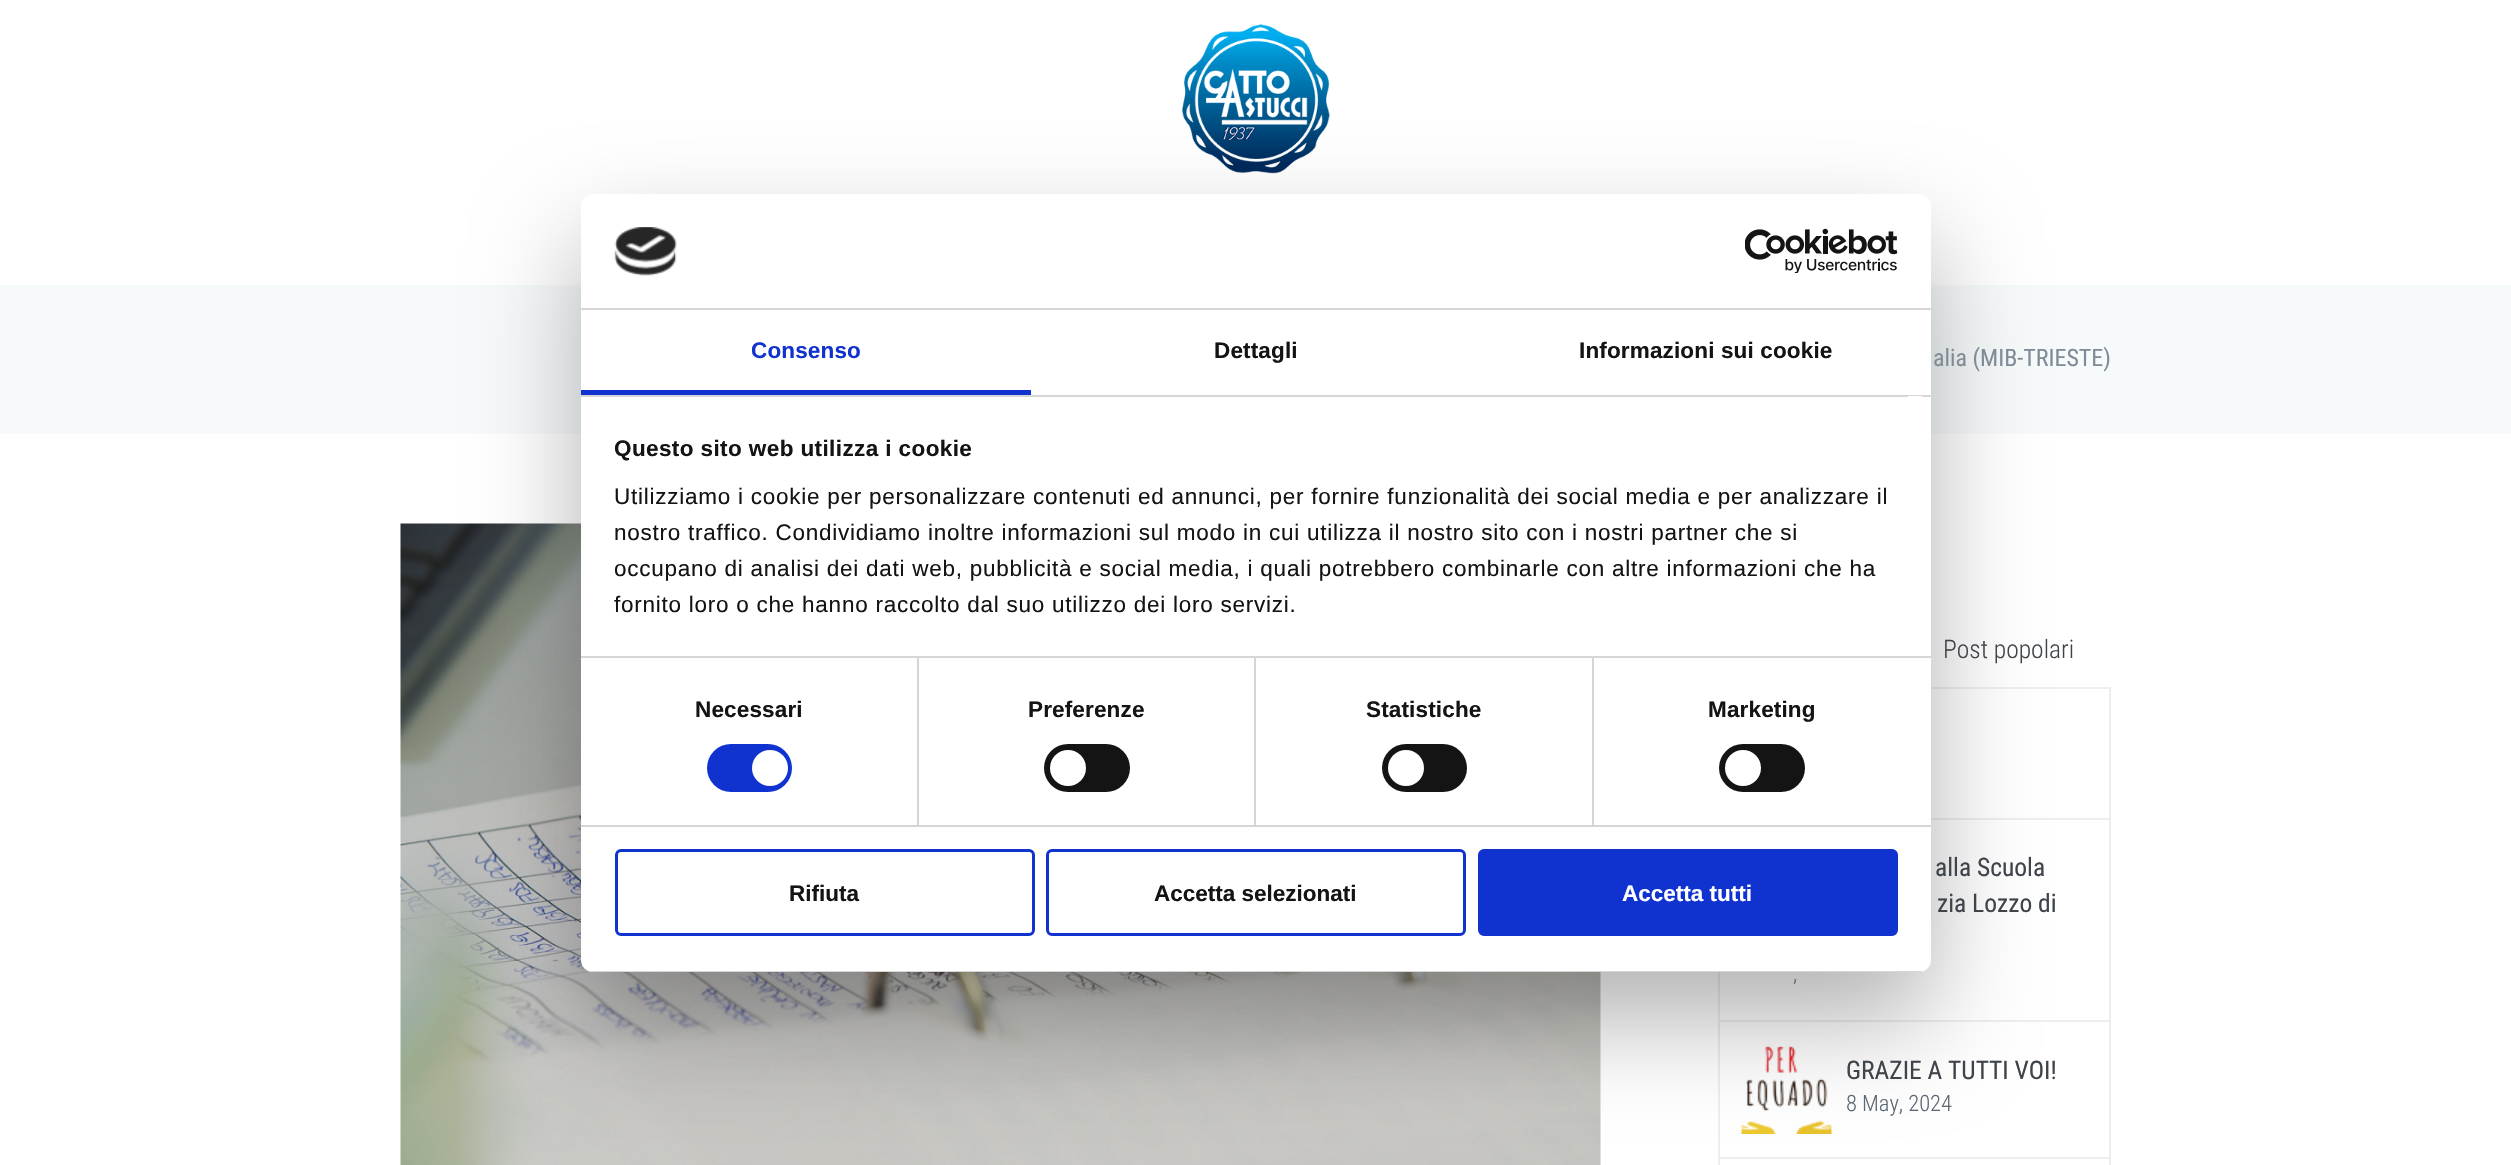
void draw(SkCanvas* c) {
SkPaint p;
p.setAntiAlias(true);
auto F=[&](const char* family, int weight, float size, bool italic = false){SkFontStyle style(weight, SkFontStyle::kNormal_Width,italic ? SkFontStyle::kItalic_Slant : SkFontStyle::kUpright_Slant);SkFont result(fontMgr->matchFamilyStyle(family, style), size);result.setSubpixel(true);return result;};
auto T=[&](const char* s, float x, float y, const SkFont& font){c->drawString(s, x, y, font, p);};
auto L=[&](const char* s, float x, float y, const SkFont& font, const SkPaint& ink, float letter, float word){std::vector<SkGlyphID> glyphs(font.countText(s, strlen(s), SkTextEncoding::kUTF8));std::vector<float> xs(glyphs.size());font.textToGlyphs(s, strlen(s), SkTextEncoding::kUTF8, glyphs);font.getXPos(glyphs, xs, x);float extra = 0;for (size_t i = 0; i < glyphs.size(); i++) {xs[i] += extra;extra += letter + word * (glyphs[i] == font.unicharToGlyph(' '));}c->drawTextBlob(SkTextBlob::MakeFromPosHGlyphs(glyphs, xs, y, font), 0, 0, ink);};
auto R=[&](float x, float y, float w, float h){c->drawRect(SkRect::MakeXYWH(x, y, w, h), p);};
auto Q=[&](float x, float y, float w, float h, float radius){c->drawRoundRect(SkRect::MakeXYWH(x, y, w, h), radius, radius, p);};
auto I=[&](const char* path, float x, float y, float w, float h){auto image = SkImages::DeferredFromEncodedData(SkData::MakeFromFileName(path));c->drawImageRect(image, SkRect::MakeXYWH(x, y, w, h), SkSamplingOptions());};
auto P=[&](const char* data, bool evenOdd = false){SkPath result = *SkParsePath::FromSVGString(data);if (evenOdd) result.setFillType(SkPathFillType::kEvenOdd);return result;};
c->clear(0xffffffff);
I("3.png",1182,24,148,150);
p.setColor(0xfff7fafb);
R(0,285,2511,149);
I("4.png",400,523,1201,642);
p.setColor(0xffeeeeee);
R(1931,687,180,2);
R(1931,818,180,2);
R(1718,972,2,48);
R(1718,1020,393,2);
R(1718,1020,2,137);
I("5.png",1741,1046,91,88);
p.setStroke(true);
p.setStrokeWidth(2);
c->drawRect(SkRect::MakeXYWH(1719,1158,391,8),p);
p.setStroke(false);
p.setColor(0x4d000000);
p.setMaskFilter(SkMaskFilter::MakeBlur(kNormal_SkBlurStyle, 51));
c->drawRoundRect(SkRect::MakeXYWH(581,242,1350,778),12,12,p);
p.setMaskFilter(nullptr);
p.setColor(0xffffffff);
Q(581,194,1350,778,12);
p.setColor(0xffd6d6d6);
R(581,308,1350,2);
I("1.png",614,227,63,49);
I("2.png",1745,228,153,45);
R(581,395,1350,2);
p.setColor(0xff1032cf);
R(581,390,450,5);
auto f1 = F("Liberation Sans",700,22.5);
L("Consenso",751,358,f1,p,.15,0);
p.setColor(0xff141414);
L("Dettagli",1214,358,f1,p,.15,0);
L("Informazioni sui cookie",1579,358,f1,p,.15,0);
p.setColor(0xffd6d6d6);
R(917,657,2,168);
R(1254,657,2,168);
R(1592,657,2,168);
R(581,656,1350,2);
p.setColor(0xffffffff);
R(1908,396,14,1);
p.setColor(0xff141414);
L("Questo sito web utilizza i cookie",614,456,f1,p,.4,0);
auto f2 = F("Liberation Sans",400,22.5);
L("Utilizziamo i cookie per personalizzare contenuti ed annunci, per fornire funzionalità dei social media e per analizzare il",614,504,f2,p,.75,0);
L("nostro traffico. Condividiamo inoltre informazioni sul modo in cui utilizza il nostro sito con i nostri partner che si",614,540,f2,p,.75,0);
L("occupano di analisi dei dati web, pubblicità e social media, i quali potrebbero combinarle con altre informazioni che ha",614,576,f2,p,.75,0);
L("fornito loro o che hanno raccolto dal suo utilizzo dei loro servizi.",614,612,f2,p,.75,0);
p.setColor(0xffd6d6d6);
R(581,825,1350,2);
p.setColor(0xff141414);
L("Necessari",695,717,f1,p,.15,0);
p.setColor(0xff1032cf);
Q(707,744,85,48,24);
p.setColor(0xffffffff);
c->drawCircle(770,768,18,p);
p.setColor(0xff141414);
L("Preferenze",1028,717,f1,p,.15,0);
Q(1044,744,86,48,24);
p.setColor(0xffffffff);
c->drawCircle(1068,768,18,p);
p.setColor(0xff141414);
L("Statistiche",1366,717,f1,p,.15,0);
Q(1382,744,85,48,24);
p.setColor(0xffffffff);
c->drawCircle(1406,768,18,p);
p.setColor(0xff141414);
L("Marketing",1708,717,f1,p,.15,0);
Q(1719,744,86,48,24);
p.setColor(0xffffffff);
c->drawCircle(1743,768,18,p);
c->save();
c->clipPath(P("M593 194h1326c6.5 0 12 5.5 12 12v754c0 6.5-5.5 12-12 12h-1326c-6.5 0-12-5.5-12-12v-754c0-6.5 5.5-12 12-12z"),true);
p.setColor(0xffd6d6d6);
R(581,971,1350,1);
c->restore();
p.setStroke(true);
p.setStrokeWidth(3);
p.setColor(0xff1032cf);
c->drawRoundRect(SkRect::MakeXYWH(616.5,850.5,417,84),4.5,4.5,p);
p.setStroke(false);
p.setColor(0xff141414);
T("Rifiuta",789,901,f1);
p.setStroke(true);
p.setColor(0xff1032cf);
c->drawRoundRect(SkRect::MakeXYWH(1047.5,850.5,417,84),4.5,4.5,p);
p.setStroke(false);
p.setColor(0xff141414);
T("Accetta selezionati",1154,901,f1);
p.setColor(0xff1032cf);
c->drawRoundRect(SkRect::MakeXYWH(1479.5,850.5,417,84),4.5,4.5,p);
p.setStroke(true);
c->drawRoundRect(SkRect::MakeXYWH(1479.5,850.5,417,84),4.5,4.5,p);
p.setStroke(false);
p.setColor(0xffffffff);
T("Accetta tutti",1622,901,f1);
auto f3 = F("Roboto Condensed",400,24);
p.setColor(0xff7f8c97);
T("alia (MIB-TRIESTE)",1933,366,f3);
auto f4 = F("Roboto Condensed",300,25.5);
p.setColor(0xff3f444a);
T("Post popolari",1943,658,f4);
p.setColor(0xffeeeeee);
R(2109,687,2,131);
R(2109,818,2,202);
auto f5 = F("Roboto Condensed",400,25.5);
p.setColor(0xff3f444a);
T("alla Scuola",1935,876,f5);
T("zia Lozzo di",1937,912,f5);
auto f6 = F("Roboto Condensed",300,22.5);
p.setColor(0xff5c6873);
T(",",1793,981,f6);
p.setColor(0xffeeeeee);
R(2109,1020,2,137);
p.setColor(0xff3f444a);
T("GRAZIE A TUTTI VOI!",1846,1079,f5);
p.setColor(0xff5c6873);
T("8 May, 2024",1846,1111,f6);
}
